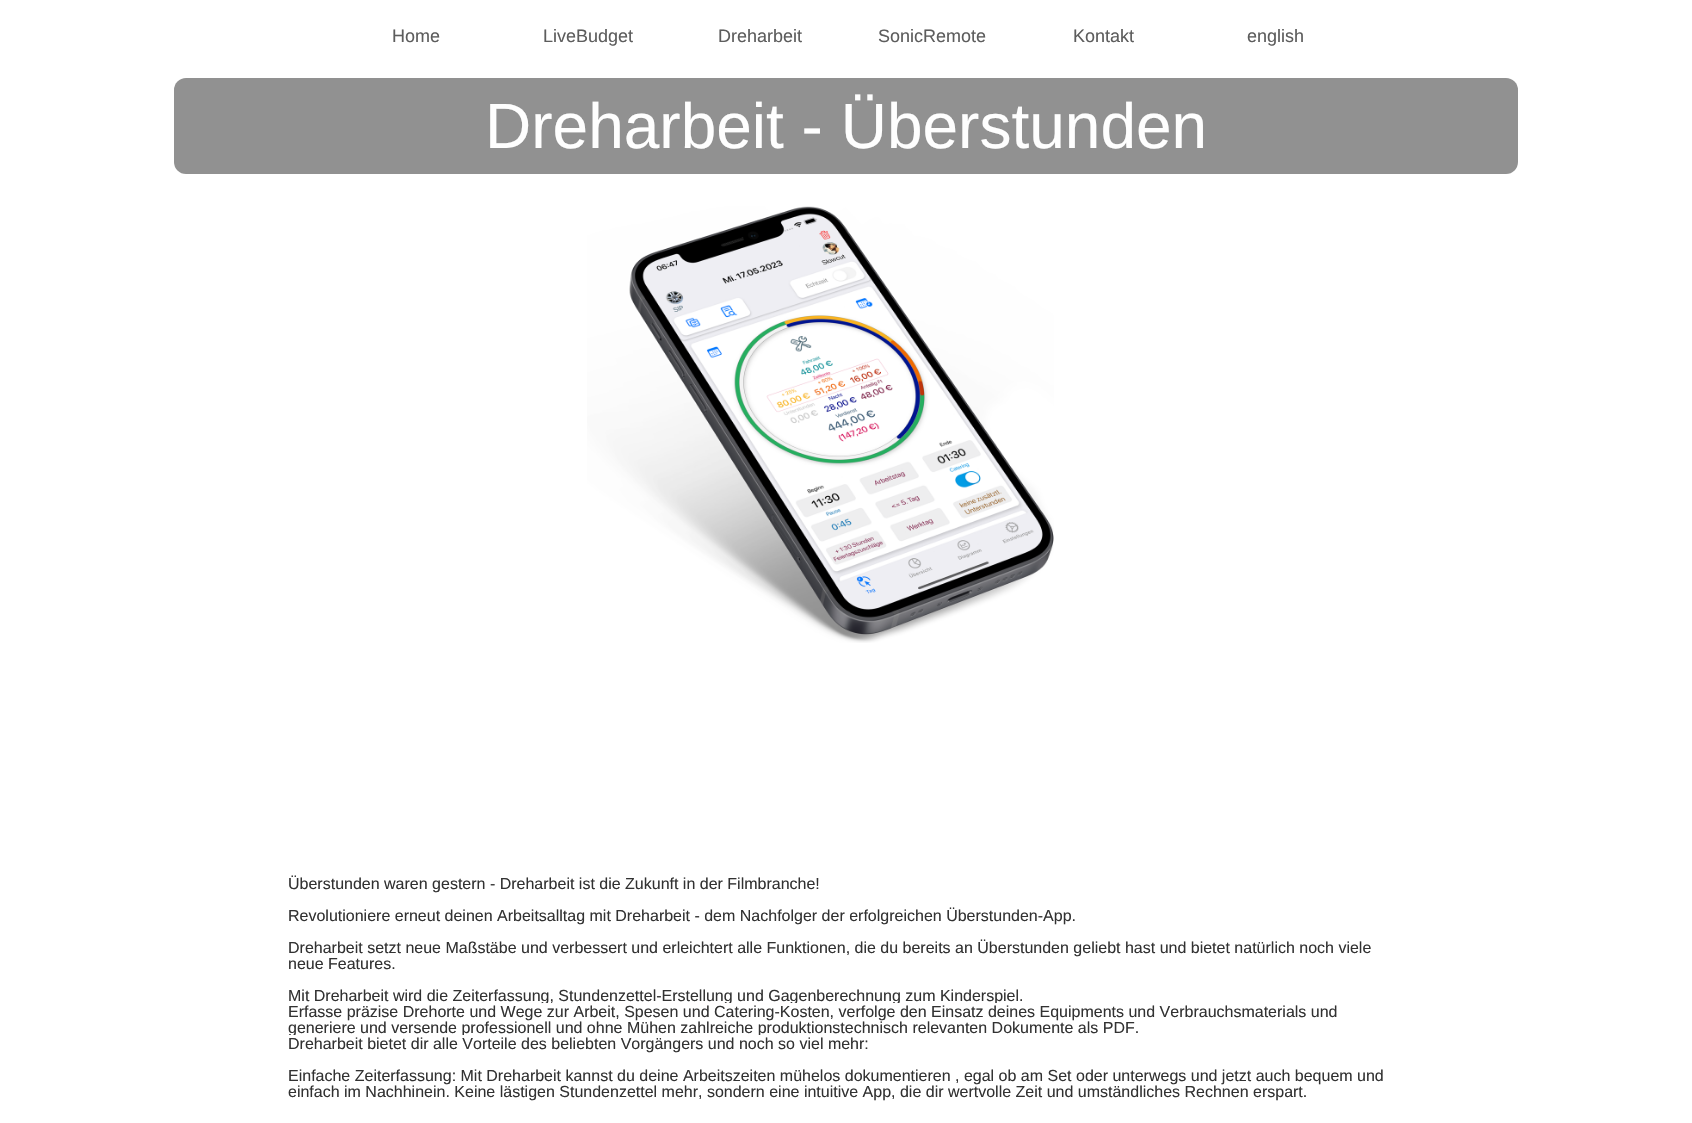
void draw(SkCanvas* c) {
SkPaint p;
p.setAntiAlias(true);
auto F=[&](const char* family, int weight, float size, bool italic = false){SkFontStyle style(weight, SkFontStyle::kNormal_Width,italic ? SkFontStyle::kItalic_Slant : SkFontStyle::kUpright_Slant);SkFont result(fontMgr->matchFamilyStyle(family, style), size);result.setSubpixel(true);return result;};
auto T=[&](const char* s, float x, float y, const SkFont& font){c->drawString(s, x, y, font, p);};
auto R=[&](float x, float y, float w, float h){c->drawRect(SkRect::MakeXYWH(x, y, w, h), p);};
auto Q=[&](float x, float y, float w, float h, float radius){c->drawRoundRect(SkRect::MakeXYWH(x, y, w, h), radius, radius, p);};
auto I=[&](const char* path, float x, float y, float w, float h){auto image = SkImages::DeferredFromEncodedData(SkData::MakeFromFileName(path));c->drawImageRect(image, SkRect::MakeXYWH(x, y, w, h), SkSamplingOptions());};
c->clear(0xffffffff);
auto f1 = F("Liberation Sans",400,18);
p.setColor(0xff5d5d5d);
T("Home",392,42,f1);
T("LiveBudget",543,42,f1);
T("Dreharbeit",718,42,f1);
T("SonicRemote",878,42,f1);
T("Kontakt",1073,42,f1);
T("english",1247,42,f1);
p.setColor(0xff919191);
Q(174,78,1344,96,12);
auto f2 = F("Liberation Sans",400,64);
p.setColor(0xfffefefe);
T("Dreharbeit - Überstunden",485,148,f2);
I("1.png",587,206,467,437);
auto f3 = F("Liberation Sans",400,16);
p.setColor(0xff323232);
T("Überstunden waren gestern - Dreharbeit ist die Zukunft in der Filmbranche!",288,889,f3);
T("Revolutioniere erneut deinen Arbeitsalltag mit Dreharbeit - dem Nachfolger der erfolgreichen Überstunden-App.",288,921,f3);
T("Dreharbeit setzt neue Maßstäbe und verbessert und erleichtert alle Funktionen, die du bereits an Überstunden geliebt hast und bietet natürlich noch viele",288,953,f3);
T("neue Features.",288,969,f3);
T("Mit Dreharbeit wird die Zeiterfassung, Stundenzettel-Erstellung und Gagenberechnung zum Kinderspiel.",288,1001,f3);
T("Erfasse präzise Drehorte und Wege zur Arbeit, Spesen und Catering-Kosten, verfolge den Einsatz deines Equipments und Verbrauchsmaterials und",288,1017,f3);
p.setColor(0xfffffefe);
R(542,1003,455,2);
p.setColor(0xff323232);
T("generiere und versende professionell und ohne Mühen zahlreiche produktionstechnisch relevanten Dokumente als PDF.",288,1033,f3);
T("Dreharbeit bietet dir alle Vorteile des beliebten Vorgängers und noch so viel mehr:",288,1049,f3);
p.setColor(0xfffffefe);
R(289,1035,472,2);
p.setColor(0xff323232);
T("Einfache Zeiterfassung: Mit Dreharbeit kannst du deine Arbeitszeiten mühelos dokumentieren , egal ob am Set oder unterwegs und jetzt auch bequem und",288,1081,f3);
T("einfach im Nachhinein. Keine lästigen Stundenzettel mehr, sondern eine intuitive App, die dir wertvolle Zeit und umständliches Rechnen erspart.",288,1097,f3);
}
